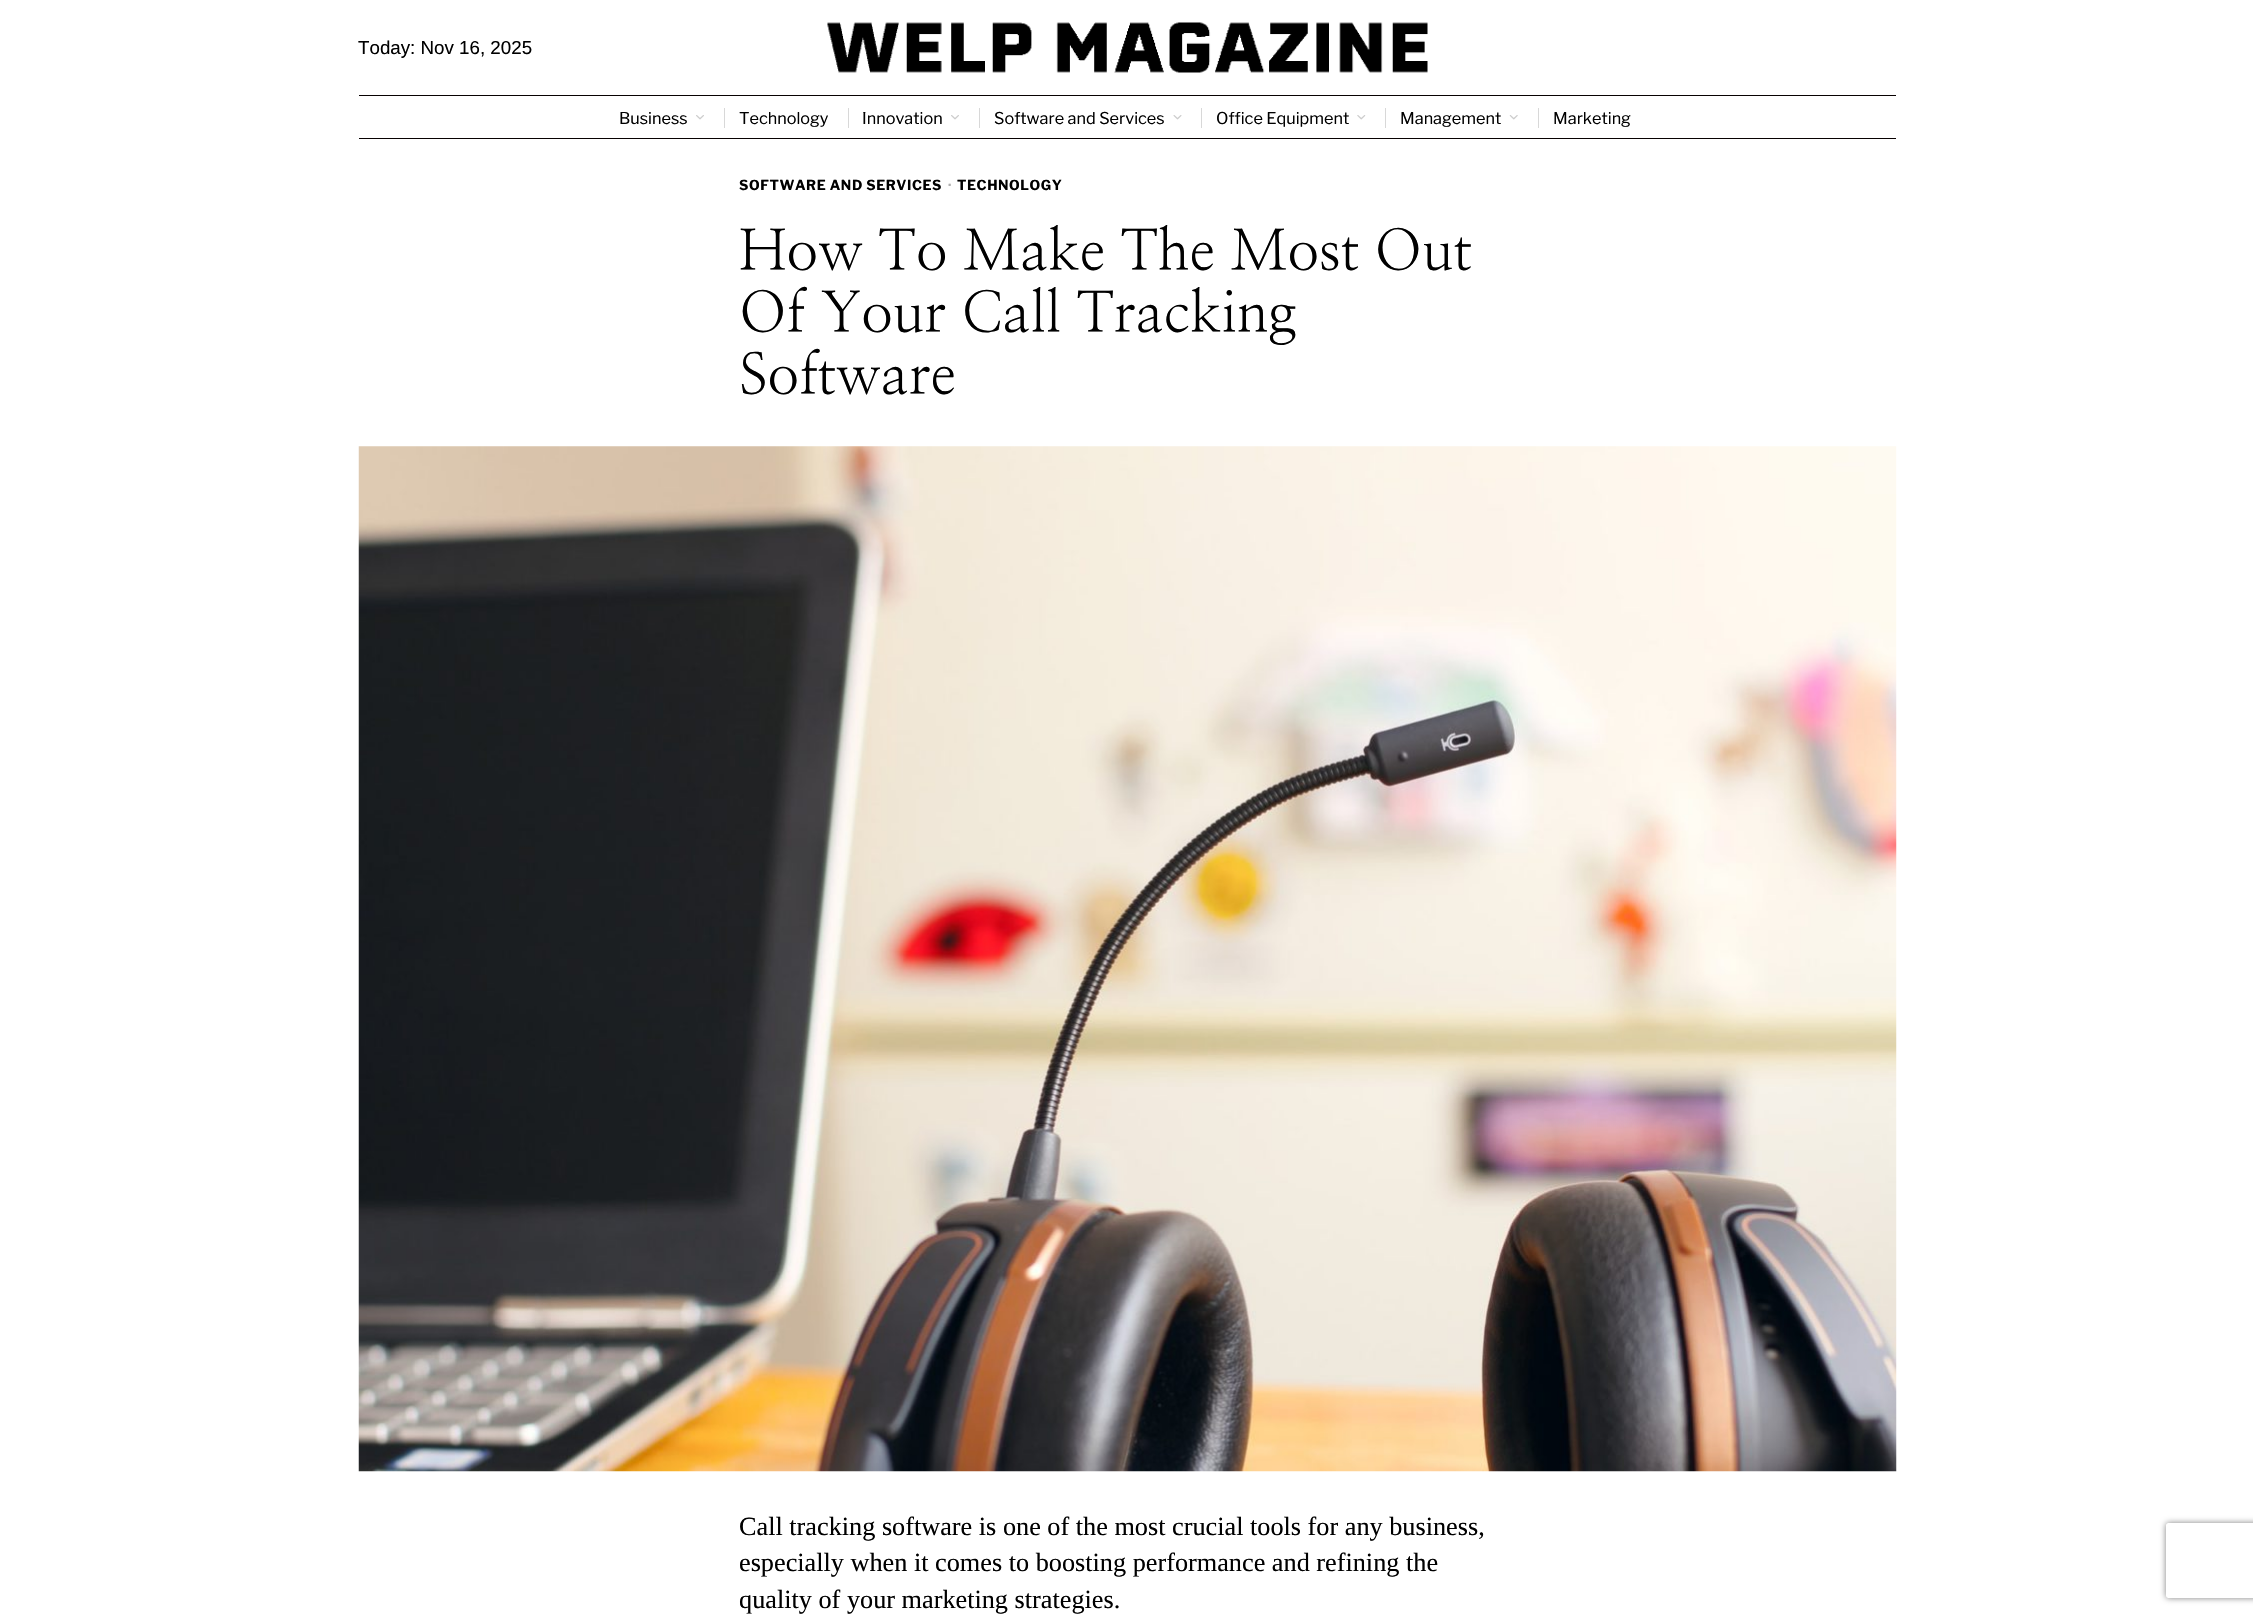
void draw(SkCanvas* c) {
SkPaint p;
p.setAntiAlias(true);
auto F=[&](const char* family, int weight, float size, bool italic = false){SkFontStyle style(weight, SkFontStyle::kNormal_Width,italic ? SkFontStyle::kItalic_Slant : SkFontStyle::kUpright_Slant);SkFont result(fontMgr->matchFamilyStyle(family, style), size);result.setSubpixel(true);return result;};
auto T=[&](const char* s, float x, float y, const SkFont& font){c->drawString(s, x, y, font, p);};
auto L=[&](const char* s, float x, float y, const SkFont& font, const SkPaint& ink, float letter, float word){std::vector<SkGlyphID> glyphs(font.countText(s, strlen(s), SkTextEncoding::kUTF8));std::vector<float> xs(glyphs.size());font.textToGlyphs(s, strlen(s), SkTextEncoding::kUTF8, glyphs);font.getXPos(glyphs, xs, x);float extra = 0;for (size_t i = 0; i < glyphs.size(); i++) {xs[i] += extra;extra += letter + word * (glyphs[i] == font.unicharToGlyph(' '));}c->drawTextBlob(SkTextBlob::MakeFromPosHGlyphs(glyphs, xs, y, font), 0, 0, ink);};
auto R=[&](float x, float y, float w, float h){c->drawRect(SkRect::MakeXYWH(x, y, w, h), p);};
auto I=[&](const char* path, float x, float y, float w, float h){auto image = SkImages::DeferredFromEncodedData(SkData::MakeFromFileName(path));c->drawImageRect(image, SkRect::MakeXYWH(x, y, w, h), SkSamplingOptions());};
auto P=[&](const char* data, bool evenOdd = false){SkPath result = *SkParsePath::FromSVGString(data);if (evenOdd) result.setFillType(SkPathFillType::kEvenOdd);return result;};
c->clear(0xffffffff);
auto f1 = F("Liberation Sans",400,18.75);
p.setColor(0xff000000);
T("Today: Nov 16, 2025",358,54,f1);
I("1.png",827,22,601,51);
p.setColor(0xff080101);
R(359,95,1537,1);
R(359,138,1537,1);
auto f2 = F("Libre Franklin",400,16.25);
p.setColor(0xff000000);
T("Business",619,124,f2);
I("2.png",696,115,8,5);
p.setColor(0xffd8d8d8);
R(724,108,1,20);
p.setColor(0xff000000);
T("Technology",739,124,f2);
p.setColor(0xffd8d8d8);
R(848,108,1,20);
p.setColor(0xff000000);
T("Innovation",862,124,f2);
I("2.png",951,115,8,5);
p.setColor(0xffd8d8d8);
R(979,108,1,20);
p.setColor(0xff000000);
T("Software and Services",994,124,f2);
I("3.png",1173,115,9,5);
p.setColor(0xffd8d8d8);
R(1201,108,1,20);
p.setColor(0xff000000);
T("Office Equipment",1216,124,f2);
I("4.png",1357,115,9,5);
p.setColor(0xffd8d8d8);
R(1385,108,1,20);
p.setColor(0xff000000);
T("Management",1400,124,f2);
I("5.png",1509,115,9,5);
p.setColor(0xffd8d8d8);
R(1538,108,1,20);
p.setColor(0xff000000);
T("Marketing",1553,124,f2);
auto f3 = F("Libre Franklin",700,13.75);
L("SOFTWARE AND SERVICES",739,190,f3,p,.6,0);
p.setColor(0xffb0b0b0);
L("·",948,190,f3,p,.6,0);
p.setColor(0xff000000);
L("TECHNOLOGY",957,190,f3,p,.6,0);
auto f4 = F("NanumMyeongjo",400,56.25);
T("How To Make The Most Out",739,270,f4);
T("Of Your Call Tracking",739,332,f4);
T("Software",739,394,f4);
I("6.png",358,446,1539,1026);
auto f5 = F("Liberation Serif",400,26.25);
T("Call tracking software is one of the most crucial tools for any business,",739,1535,f5);
T("especially when it comes to boosting performance and refining the",739,1571,f5);
T("quality of your marketing strategies.",739,1608,f5);
c->save();
c->clipPath(P("M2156 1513h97v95h-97zm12.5 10h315c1.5 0 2.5 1 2.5 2.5v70c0 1.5-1 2.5-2.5 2.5h-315c-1.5 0-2.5-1-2.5-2.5v-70c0-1.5 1-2.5 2.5-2.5z",true),true);
p.setColor(0xff808080);
p.setMaskFilter(SkMaskFilter::MakeBlur(kNormal_SkBlurStyle, 3));
c->drawRoundRect(SkRect::MakeXYWH(2166,1523,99,75),2.5,2.5,p);
p.setMaskFilter(nullptr);
c->restore();
}
